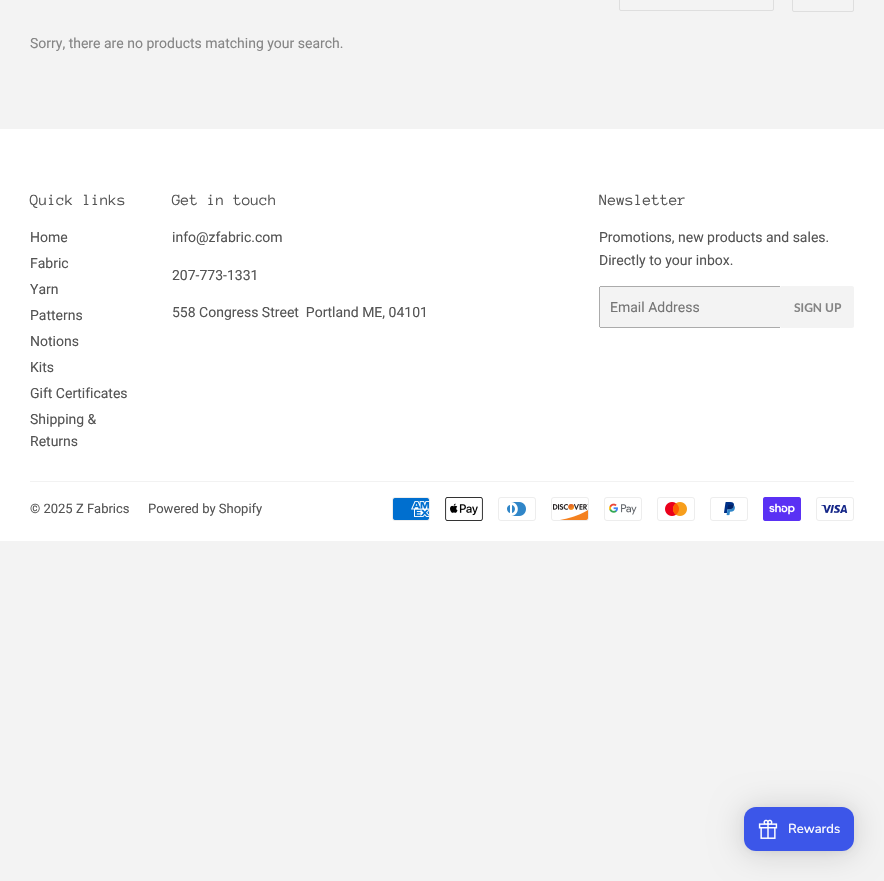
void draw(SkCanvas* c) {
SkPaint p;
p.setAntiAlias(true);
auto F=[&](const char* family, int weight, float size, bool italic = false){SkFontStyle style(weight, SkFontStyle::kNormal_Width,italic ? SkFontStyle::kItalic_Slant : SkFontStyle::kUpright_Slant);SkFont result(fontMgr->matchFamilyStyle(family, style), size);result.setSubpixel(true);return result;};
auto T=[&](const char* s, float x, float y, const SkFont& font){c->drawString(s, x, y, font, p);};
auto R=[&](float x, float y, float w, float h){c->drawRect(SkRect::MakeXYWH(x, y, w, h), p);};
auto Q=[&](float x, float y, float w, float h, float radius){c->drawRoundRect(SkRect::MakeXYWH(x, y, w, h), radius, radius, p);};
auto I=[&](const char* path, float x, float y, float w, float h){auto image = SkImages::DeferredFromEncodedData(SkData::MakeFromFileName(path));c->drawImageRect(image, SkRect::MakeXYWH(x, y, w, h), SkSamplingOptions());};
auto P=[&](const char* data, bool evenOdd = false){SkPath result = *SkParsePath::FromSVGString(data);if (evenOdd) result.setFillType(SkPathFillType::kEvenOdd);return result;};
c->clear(0xfff3f3f3);
p.setStroke(true);
p.setStrokeWidth(1);
p.setColor(0xffdedede);
c->drawRoundRect(SkRect::MakeXYWH(619.5,-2.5,154,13),1.5,1.5,p);
c->drawRoundRect(SkRect::MakeXYWH(792.5,-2.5,61,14),1.5,1.5,p);
auto f1 = F("Roboto",400,14);
p.setStroke(false);
p.setColor(0xff858585);
T("Sorry, there are no products matching your search.",30,48,f1);
p.setColor(0xffffffff);
R(0,129,884,412);
auto f2 = F("Anonymous Pro",400,16);
p.setColor(0xff545454);
T("Quick links",30,205,f2);
T("Home",30,242,f1);
T("Fabric",30,268,f1);
T("Yarn",30,294,f1);
T("Patterns",30,320,f1);
T("Notions",30,346,f1);
T("Kits",30,372,f1);
T("Gift Certificates",30,398,f1);
T("Shipping &",30,424,f1);
T("Returns",30,446,f1);
T("Get in touch",172,205,f2);
T("info@zfabric.com",172,242,f1);
T("207-773-1331",172,280,f1);
T("558 Congress Street  Portland ME, 04101",172,317,f1);
T("Newsletter",599,205,f2);
T("Promotions, new products and sales.",599,242,f1);
T("Directly to your inbox.",599,265,f1);
p.setColor(0xfff3f3f3);
Q(599,286,182,42,2);
p.setColor(0xffababab);
R(600,286,180,1);
R(600,327,180,1);
R(599,287,1,40);
p.setColor(0xff757575);
T("Email Address",610,312,f1);
p.setColor(0xfff3f3f3);
c->drawPath(P("M781 286h71c1 0 2 1 2 2v38c0 1-1 2-2 2h-71z"),p);
auto f3 = F("Lato",700,12);
p.setColor(0xff858585);
T("SIGN UP",794,312,f3);
p.setColor(0xfff2f2f2);
R(30,481,824,1);
auto f4 = F("Roboto",400,13);
p.setColor(0xff545454);
T("© 2025 Z Fabrics",30,513,f4);
T("Powered by Shopify",148,513,f4);
I("1.png",392,497,38,24);
I("2.png",445,497,38,24);
I("3.png",498,497,38,24);
I("4.png",551,497,38,24);
I("5.png",604,497,38,24);
I("6.png",657,497,38,24);
I("7.png",710,497,38,24);
I("8.png",763,497,38,24);
I("9.png",816,497,38,24);
p.setColor(0x29000000);
p.setMaskFilter(SkMaskFilter::MakeBlur(kNormal_SkBlurStyle, 16));
c->drawRoundRect(SkRect::MakeXYWH(744,809,110,44),12,12,p);
p.setMaskFilter(nullptr);
p.setColor(0x0f000000);
p.setMaskFilter(SkMaskFilter::MakeBlur(kNormal_SkBlurStyle, 3));
c->drawRoundRect(SkRect::MakeXYWH(744,808,110,44),12,12,p);
p.setMaskFilter(nullptr);
p.setColor(0xff3c56e9);
Q(744,807,110,44,12);
I("10.png",758,819,20,20);
auto f5 = F("Nunito",500,13);
p.setColor(0xffffffff);
T("Rewards",788,833,f5);
}
